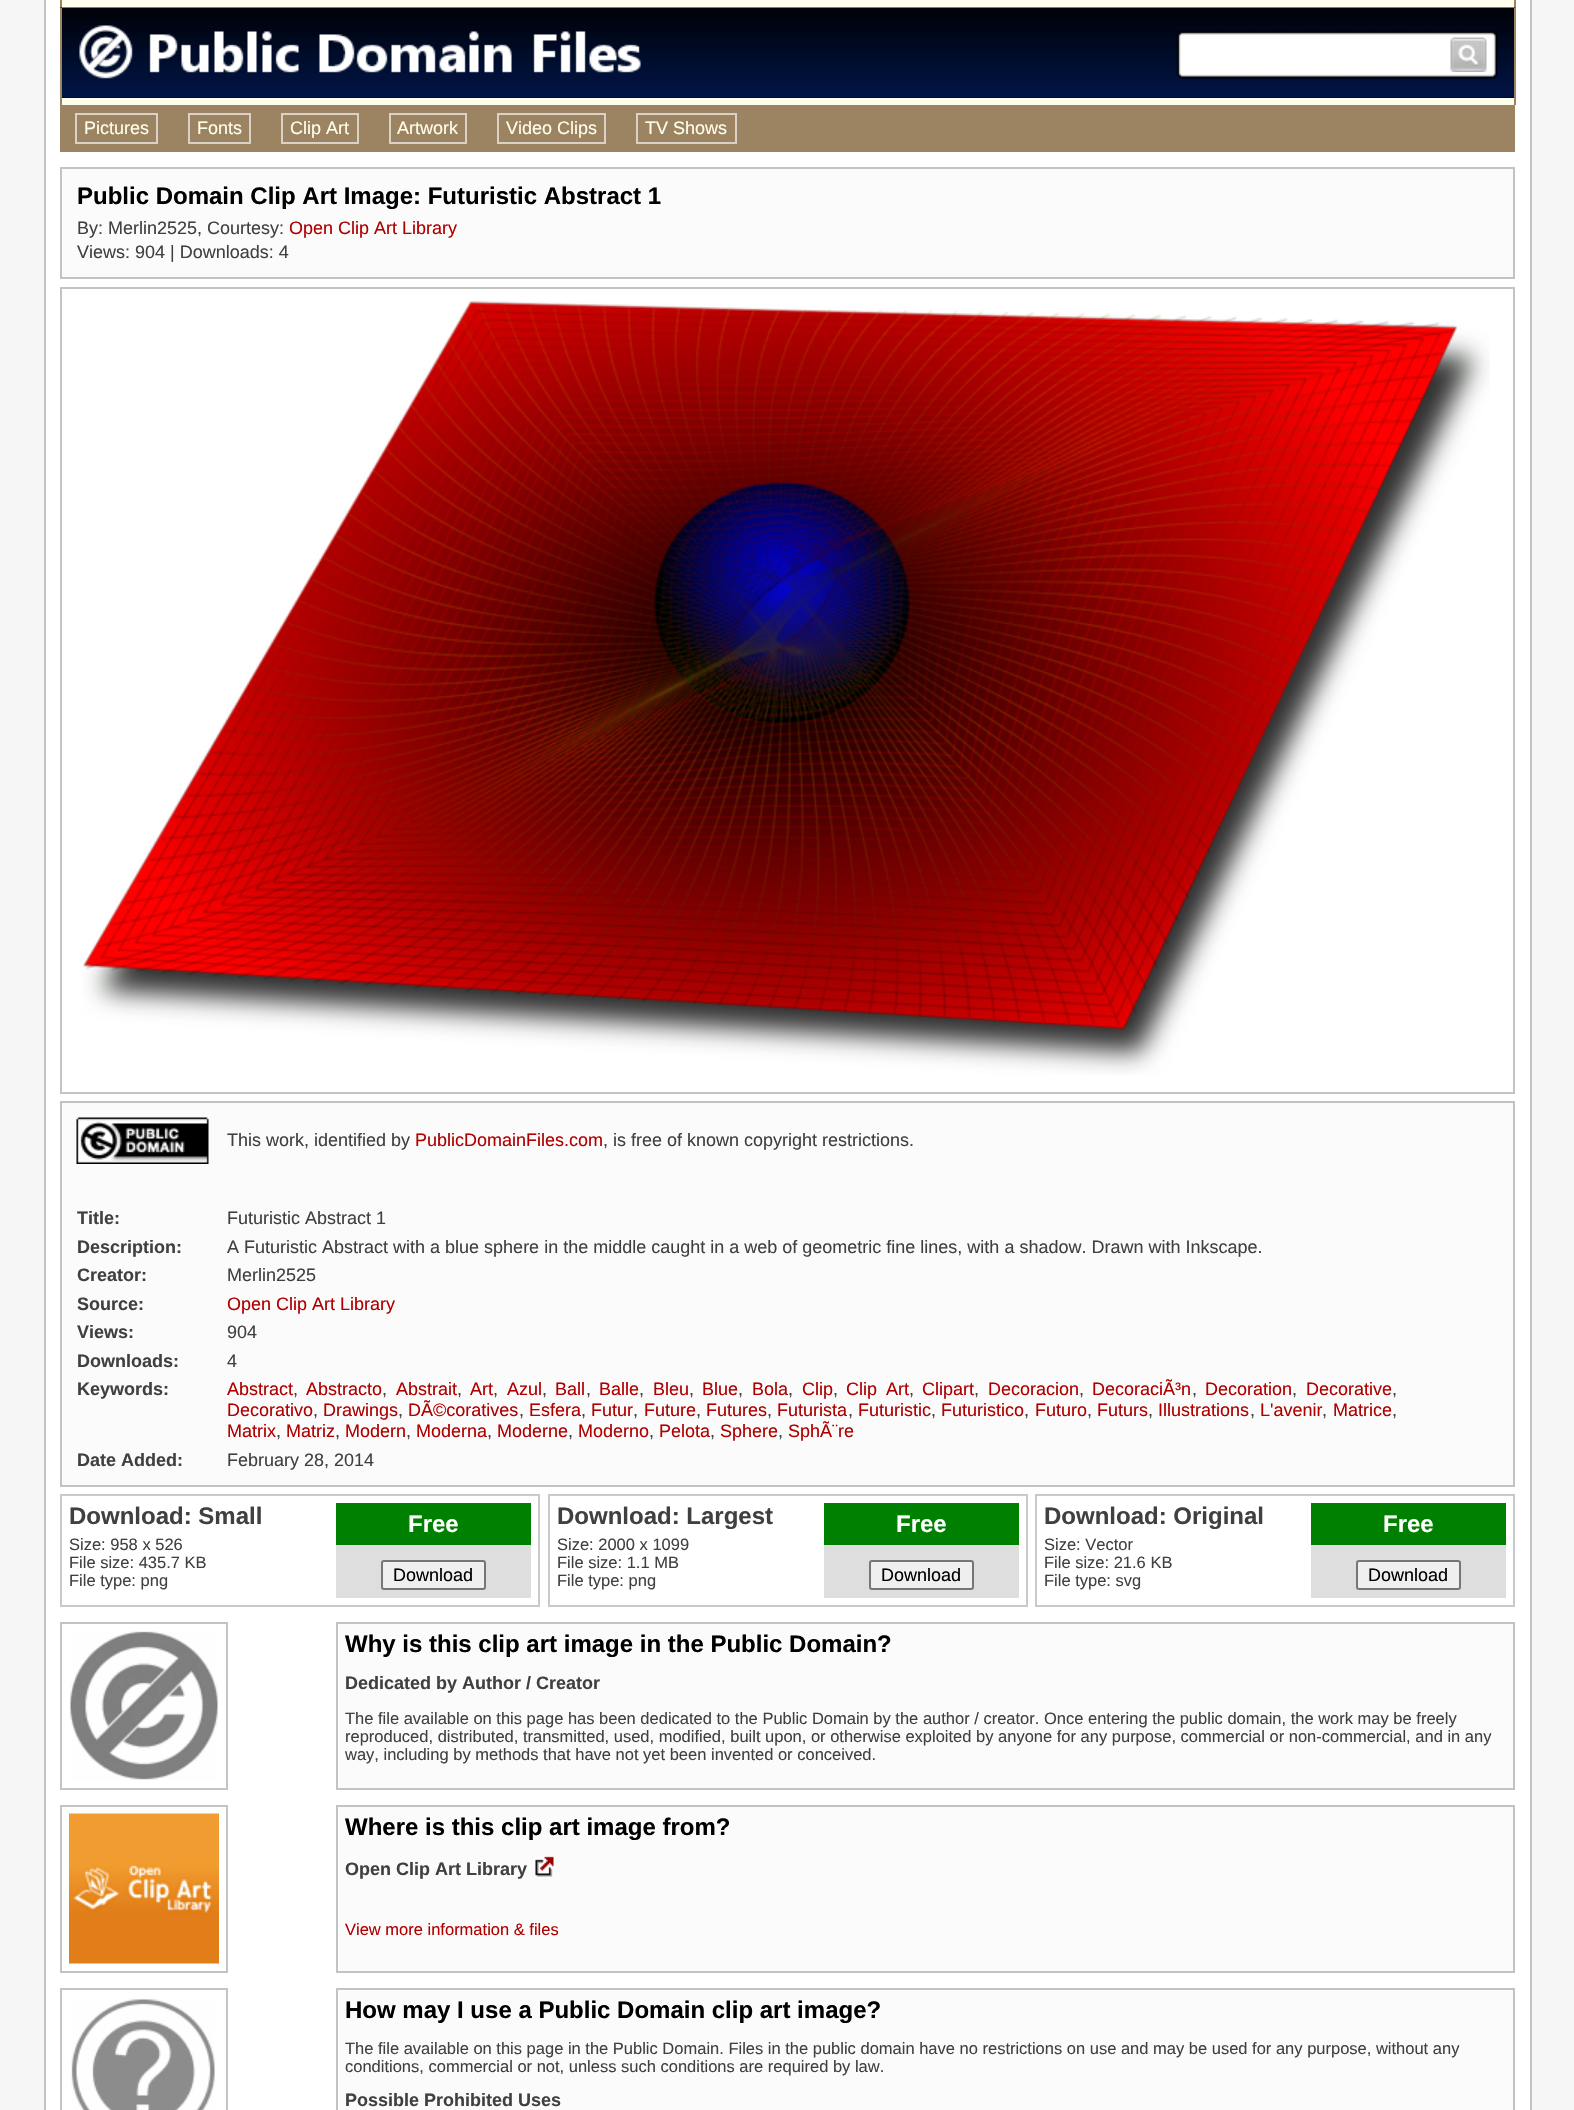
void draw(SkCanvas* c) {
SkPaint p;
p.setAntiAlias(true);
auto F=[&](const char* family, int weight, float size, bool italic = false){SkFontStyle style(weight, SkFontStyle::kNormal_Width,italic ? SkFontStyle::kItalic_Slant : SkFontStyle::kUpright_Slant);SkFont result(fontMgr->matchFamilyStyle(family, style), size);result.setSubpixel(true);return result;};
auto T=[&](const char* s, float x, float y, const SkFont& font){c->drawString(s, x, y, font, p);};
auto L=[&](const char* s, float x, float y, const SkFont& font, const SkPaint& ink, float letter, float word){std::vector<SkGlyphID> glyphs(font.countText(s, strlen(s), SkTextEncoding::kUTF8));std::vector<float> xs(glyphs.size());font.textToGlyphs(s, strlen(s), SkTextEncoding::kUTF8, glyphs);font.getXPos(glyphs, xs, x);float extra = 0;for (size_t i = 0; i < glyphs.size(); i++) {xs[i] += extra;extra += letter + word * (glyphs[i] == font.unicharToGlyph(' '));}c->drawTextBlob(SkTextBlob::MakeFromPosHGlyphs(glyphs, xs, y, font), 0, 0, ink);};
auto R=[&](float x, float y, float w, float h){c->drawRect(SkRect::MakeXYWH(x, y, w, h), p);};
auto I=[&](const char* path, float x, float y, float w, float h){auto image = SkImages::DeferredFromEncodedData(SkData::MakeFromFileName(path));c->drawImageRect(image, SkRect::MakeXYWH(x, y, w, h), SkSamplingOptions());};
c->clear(0xfff6f6f6);
p.setColor(0xffffffff);
c->drawRect(SkRect::MakeXYWH(45,-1,1486,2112),p);
p.setStroke(true);
p.setStrokeWidth(2);
p.setColor(0xffc3c3c3);
c->drawRect(SkRect::MakeXYWH(45,-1,1486,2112),p);
p.setStroke(false);
p.setColor(0xffffffeb);
R(60,0,1455,8);
p.setColor(0xff9c8463);
R(1514,0,2,8);
R(60,0,2,8);
p.setColor(0xff000000);
R(62,97,1452,1);
I("1.png",60,7,1455,91);
p.setColor(0xff9c8463);
R(1514,8,2,90);
R(60,8,2,90);
I("2.png",79,25,562,54);
I("3.png",1176,30,322,50);
I("4.png",1450,37,37,35);
p.setColor(0xffffffeb);
R(60,98,1455,7);
p.setColor(0xff9c8463);
R(1514,98,2,7);
R(60,98,2,7);
R(60,105,1455,47);
p.setStroke(true);
p.setColor(0xffdad2c6);
c->drawRect(SkRect::MakeXYWH(76,114,81,29),p);
auto f1 = F("Liberation Sans",400,18);
p.setStroke(false);
p.setColor(0xffffffeb);
T("Pictures",84,134,f1);
p.setStroke(true);
p.setColor(0xffdad2c6);
c->drawRect(SkRect::MakeXYWH(189,114,61,29),p);
p.setStroke(false);
p.setColor(0xffffffeb);
T("Fonts",197,134,f1);
p.setStroke(true);
p.setColor(0xffdad2c6);
c->drawRect(SkRect::MakeXYWH(282,114,76,29),p);
p.setStroke(false);
p.setColor(0xffffffeb);
T("Clip Art",290,134,f1);
p.setStroke(true);
p.setColor(0xffdad2c6);
c->drawRect(SkRect::MakeXYWH(390,114,76,29),p);
p.setStroke(false);
p.setColor(0xffffffeb);
T("Artwork",397,134,f1);
p.setStroke(true);
p.setColor(0xffdad2c6);
c->drawRect(SkRect::MakeXYWH(498,114,107,29),p);
p.setStroke(false);
p.setColor(0xffffffeb);
T("Video Clips",506,134,f1);
p.setStroke(true);
p.setColor(0xffdad2c6);
c->drawRect(SkRect::MakeXYWH(637,114,99,29),p);
p.setStroke(false);
p.setColor(0xffffffeb);
T("TV Shows",645,134,f1);
p.setColor(0xfffbfbfb);
c->drawRect(SkRect::MakeXYWH(61,168,1453,110),p);
p.setStroke(true);
p.setColor(0xffc3c3c3);
c->drawRect(SkRect::MakeXYWH(61,168,1453,110),p);
auto f2 = F("Liberation Sans",700,24);
p.setStroke(false);
p.setColor(0xff000000);
T("Public Domain Clip Art Image: Futuristic Abstract 1",77,204,f2);
p.setColor(0xff404040);
T("By: Merlin2525, Courtesy:",77,234,f1);
p.setColor(0xffb00000);
T("Open Clip Art Library",289,234,f1);
p.setColor(0xff404040);
T("Views: 904 | Downloads: 4",77,258,f1);
p.setStroke(true);
p.setColor(0xffc3c3c3);
c->drawRect(SkRect::MakeXYWH(61,288,1453,805),p);
I("5.png",82,301,1408,774);
p.setStroke(false);
p.setColor(0xfffbfbfb);
c->drawRect(SkRect::MakeXYWH(61,1102,1453,384),p);
p.setStroke(true);
p.setColor(0xffc3c3c3);
c->drawRect(SkRect::MakeXYWH(61,1102,1453,384),p);
I("6.png",76,1117,133,47);
p.setStroke(false);
p.setColor(0xff404040);
T("This work, identified by",227,1146,f1);
p.setColor(0xffb00000);
T("PublicDomainFiles.com",415,1146,f1);
p.setColor(0xff404040);
T(", is free of known copyright restrictions.",603,1146,f1);
auto f3 = F("Liberation Sans",700,18);
T("Title:",77,1224,f3);
T("Futuristic Abstract 1",227,1224,f1);
T("Description:",77,1253,f3);
T("A Futuristic Abstract with a blue sphere in the middle caught in a web of geometric fine lines, with a shadow. Drawn with Inkscape.",227,1253,f1);
T("Creator:",77,1281,f3);
T("Merlin2525",227,1281,f1);
T("Source:",77,1310,f3);
p.setColor(0xffb00000);
T("Open Clip Art Library",227,1310,f1);
p.setColor(0xff404040);
T("Views:",77,1338,f3);
T("904",227,1338,f1);
T("Downloads:",77,1367,f3);
T("4",227,1367,f1);
T("Keywords:",77,1395,f3);
p.setColor(0xffb00000);
T("Abstract",227,1395,f1);
p.setColor(0xff404040);
T(",",293,1395,f1);
p.setColor(0xffb00000);
T("Abstracto",306,1395,f1);
p.setColor(0xff404040);
T(",",382,1395,f1);
p.setColor(0xffb00000);
T("Abstrait",396,1395,f1);
p.setColor(0xff404040);
T(",",457,1395,f1);
p.setColor(0xffb00000);
T("Art",470,1395,f1);
p.setColor(0xff404040);
T(",",493,1395,f1);
p.setColor(0xffb00000);
T("Azul",507,1395,f1);
p.setColor(0xff404040);
T(",",542,1395,f1);
p.setColor(0xffb00000);
T("Ball",555,1395,f1);
p.setColor(0xff404040);
T(",",586,1395,f1);
p.setColor(0xffb00000);
T("Balle",599,1395,f1);
p.setColor(0xff404040);
T(",",639,1395,f1);
p.setColor(0xffb00000);
T("Bleu",653,1395,f1);
p.setColor(0xff404040);
T(",",689,1395,f1);
p.setColor(0xffb00000);
T("Blue",702,1395,f1);
p.setColor(0xff404040);
T(",",738,1395,f1);
p.setColor(0xffb00000);
T("Bola",752,1395,f1);
p.setColor(0xff404040);
T(",",788,1395,f1);
p.setColor(0xffb00000);
T("Clip",802,1395,f1);
p.setColor(0xff404040);
T(",",833,1395,f1);
p.setColor(0xffb00000);
L("Clip Art",846,1395,f1,p,0,4);
p.setColor(0xff404040);
T(",",909,1395,f1);
p.setColor(0xffb00000);
T("Clipart",922,1395,f1);
p.setColor(0xff404040);
T(",",974,1395,f1);
p.setColor(0xffb00000);
T("Decoracion",988,1395,f1);
p.setColor(0xff404040);
T(",",1079,1395,f1);
p.setColor(0xffb00000);
T("DecoraciÃ³n",1092,1395,f1);
p.setColor(0xff404040);
T(",",1192,1395,f1);
p.setColor(0xffb00000);
T("Decoration",1205,1395,f1);
p.setColor(0xff404040);
T(",",1292,1395,f1);
p.setColor(0xffb00000);
T("Decorative",1306,1395,f1);
p.setColor(0xff404040);
T(",",1392,1395,f1);
p.setColor(0xffb00000);
T("Decorativo",227,1416,f1);
p.setColor(0xff404040);
T(",",313,1416,f1);
p.setColor(0xffb00000);
T("Drawings",323,1416,f1);
p.setColor(0xff404040);
T(",",398,1416,f1);
p.setColor(0xffb00000);
T("DÃ©coratives",408,1416,f1);
p.setColor(0xff404040);
T(",",519,1416,f1);
p.setColor(0xffb00000);
T("Esfera",529,1416,f1);
p.setColor(0xff404040);
T(",",581,1416,f1);
p.setColor(0xffb00000);
T("Futur",591,1416,f1);
p.setColor(0xff404040);
T(",",633,1416,f1);
p.setColor(0xffb00000);
T("Future",644,1416,f1);
p.setColor(0xff404040);
T(",",696,1416,f1);
p.setColor(0xffb00000);
T("Futures",706,1416,f1);
p.setColor(0xff404040);
T(",",767,1416,f1);
p.setColor(0xffb00000);
T("Futurista",777,1416,f1);
p.setColor(0xff404040);
T(",",848,1416,f1);
p.setColor(0xffb00000);
T("Futuristic",858,1416,f1);
p.setColor(0xff404040);
T(",",931,1416,f1);
p.setColor(0xffb00000);
T("Futuristico",941,1416,f1);
p.setColor(0xff404040);
T(",",1024,1416,f1);
p.setColor(0xffb00000);
T("Futuro",1035,1416,f1);
p.setColor(0xff404040);
T(",",1087,1416,f1);
p.setColor(0xffb00000);
T("Futurs",1097,1416,f1);
p.setColor(0xff404040);
T(",",1148,1416,f1);
p.setColor(0xffb00000);
T("Illustrations",1158,1416,f1);
p.setColor(0xff404040);
T(",",1250,1416,f1);
p.setColor(0xffb00000);
T("L'avenir",1260,1416,f1);
p.setColor(0xff404040);
T(",",1322,1416,f1);
p.setColor(0xffb00000);
T("Matrice",1333,1416,f1);
p.setColor(0xff404040);
T(",",1392,1416,f1);
p.setColor(0xffb00000);
T("Matrix",227,1437,f1);
p.setColor(0xff404040);
T(",",276,1437,f1);
p.setColor(0xffb00000);
T("Matriz",286,1437,f1);
p.setColor(0xff404040);
T(",",335,1437,f1);
p.setColor(0xffb00000);
T("Modern",345,1437,f1);
p.setColor(0xff404040);
T(",",406,1437,f1);
p.setColor(0xffb00000);
T("Moderna",416,1437,f1);
p.setColor(0xff404040);
T(",",487,1437,f1);
p.setColor(0xffb00000);
T("Moderne",497,1437,f1);
p.setColor(0xff404040);
T(",",568,1437,f1);
p.setColor(0xffb00000);
T("Moderno",578,1437,f1);
p.setColor(0xff404040);
T(",",649,1437,f1);
p.setColor(0xffb00000);
T("Pelota",659,1437,f1);
p.setColor(0xff404040);
T(",",710,1437,f1);
p.setColor(0xffb00000);
T("Sphere",720,1437,f1);
p.setColor(0xff404040);
T(",",778,1437,f1);
p.setColor(0xffb00000);
T("SphÃ¨re",788,1437,f1);
p.setColor(0xff404040);
T("Date Added:",77,1466,f3);
T("February 28, 2014",227,1466,f1);
p.setStroke(true);
p.setColor(0xffc9c9c9);
c->drawRect(SkRect::MakeXYWH(61,1495,478,111),p);
p.setStroke(false);
p.setColor(0xff404040);
T("Download: Small",69,1524,f2);
auto f4 = F("Liberation Sans",400,16.5);
T("Size: 958 x 526",69,1550,f4);
T("File size: 435.7 KB",69,1568,f4);
T("File type: png",69,1586,f4);
p.setColor(0xffdedede);
R(336,1545,195,53);
p.setColor(0xff008000);
R(336,1503,195,42);
p.setColor(0xffffffff);
T("Free",408,1532,f2);
p.setColor(0xffefefef);
c->drawRoundRect(SkRect::MakeXYWH(382,1561,103,28),2,2,p);
p.setStroke(true);
p.setColor(0xff767676);
c->drawRoundRect(SkRect::MakeXYWH(382,1561,103,28),2,2,p);
p.setStroke(false);
p.setColor(0xff000000);
T("Download",393,1581,f1);
p.setStroke(true);
p.setColor(0xffc9c9c9);
c->drawRect(SkRect::MakeXYWH(549,1495,478,111),p);
p.setStroke(false);
p.setColor(0xff404040);
T("Download: Largest",557,1524,f2);
T("Size: 2000 x 1099",557,1550,f4);
T("File size: 1.1 MB",557,1568,f4);
T("File type: png",557,1586,f4);
p.setColor(0xffdedede);
R(824,1545,195,53);
p.setColor(0xff008000);
R(824,1503,195,42);
p.setColor(0xffffffff);
T("Free",896,1532,f2);
p.setColor(0xffefefef);
c->drawRoundRect(SkRect::MakeXYWH(870,1561,103,28),2,2,p);
p.setStroke(true);
p.setColor(0xff767676);
c->drawRoundRect(SkRect::MakeXYWH(870,1561,103,28),2,2,p);
p.setStroke(false);
p.setColor(0xff000000);
T("Download",881,1581,f1);
p.setStroke(true);
p.setColor(0xffc9c9c9);
c->drawRect(SkRect::MakeXYWH(1036,1495,478,111),p);
p.setStroke(false);
p.setColor(0xff404040);
T("Download: Original",1044,1524,f2);
T("Size: Vector",1044,1550,f4);
T("File size: 21.6 KB",1044,1568,f4);
T("File type: svg",1044,1586,f4);
p.setColor(0xffdedede);
R(1311,1545,195,53);
p.setColor(0xff008000);
R(1311,1503,195,42);
p.setColor(0xffffffff);
T("Free",1383,1532,f2);
p.setColor(0xffefefef);
c->drawRoundRect(SkRect::MakeXYWH(1357,1561,103,28),2,2,p);
p.setStroke(true);
p.setColor(0xff767676);
c->drawRoundRect(SkRect::MakeXYWH(1357,1561,103,28),2,2,p);
p.setStroke(false);
p.setColor(0xff000000);
T("Download",1368,1581,f1);
p.setStroke(true);
p.setColor(0xffc3c3c3);
c->drawRect(SkRect::MakeXYWH(61,1623,166,166),p);
I("7.png",70,1631,148,149);
p.setStroke(false);
p.setColor(0xfffbfbfb);
c->drawRect(SkRect::MakeXYWH(337,1623,1177,166),p);
p.setStroke(true);
p.setColor(0xffc3c3c3);
c->drawRect(SkRect::MakeXYWH(337,1623,1177,166),p);
p.setStroke(false);
p.setColor(0xff000000);
T("Why is this clip art image in the Public Domain?",345,1652,f2);
p.setColor(0xff404040);
T("Dedicated by Author / Creator",345,1689,f3);
T("The file available on this page has been dedicated to the Public Domain by the author / creator. Once entering the public domain, the work may be freely",345,1724,f4);
T("reproduced, distributed, transmitted, used, modified, built upon, or otherwise exploited by anyone for any purpose, commercial or non-commercial, and in any",345,1742,f4);
T("way, including by methods that have not yet been invented or conceived.",345,1760,f4);
p.setStroke(true);
p.setColor(0xffc3c3c3);
c->drawRect(SkRect::MakeXYWH(61,1806,166,166),p);
I("8.png",69,1813,150,151);
p.setStroke(false);
p.setColor(0xfffbfbfb);
c->drawRect(SkRect::MakeXYWH(337,1806,1177,166),p);
p.setStroke(true);
p.setColor(0xffc3c3c3);
c->drawRect(SkRect::MakeXYWH(337,1806,1177,166),p);
p.setStroke(false);
p.setColor(0xff000000);
T("Where is this clip art image from?",345,1835,f2);
p.setColor(0xff404040);
T("Open Clip Art Library",345,1875,f3);
I("9.png",535,1856,19,21);
p.setColor(0xffb00000);
T("View more information & files",345,1935,f4);
p.setStroke(true);
p.setColor(0xffc3c3c3);
c->drawRect(SkRect::MakeXYWH(61,1989,166,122),p);
I("10.png",71,1999,144,111);
p.setStroke(false);
p.setColor(0xfffbfbfb);
c->drawRect(SkRect::MakeXYWH(337,1989,1177,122),p);
p.setStroke(true);
p.setColor(0xffc3c3c3);
c->drawRect(SkRect::MakeXYWH(337,1989,1177,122),p);
p.setStroke(false);
p.setColor(0xff000000);
T("How may I use a Public Domain clip art image?",345,2018,f2);
p.setColor(0xff404040);
T("The file available on this page in the Public Domain. Files in the public domain have no restrictions on use and may be used for any purpose, without any",345,2054,f4);
T("conditions, commercial or not, unless such conditions are required by law.",345,2072,f4);
T("Possible Prohibited Uses",345,2106,f3);
}
